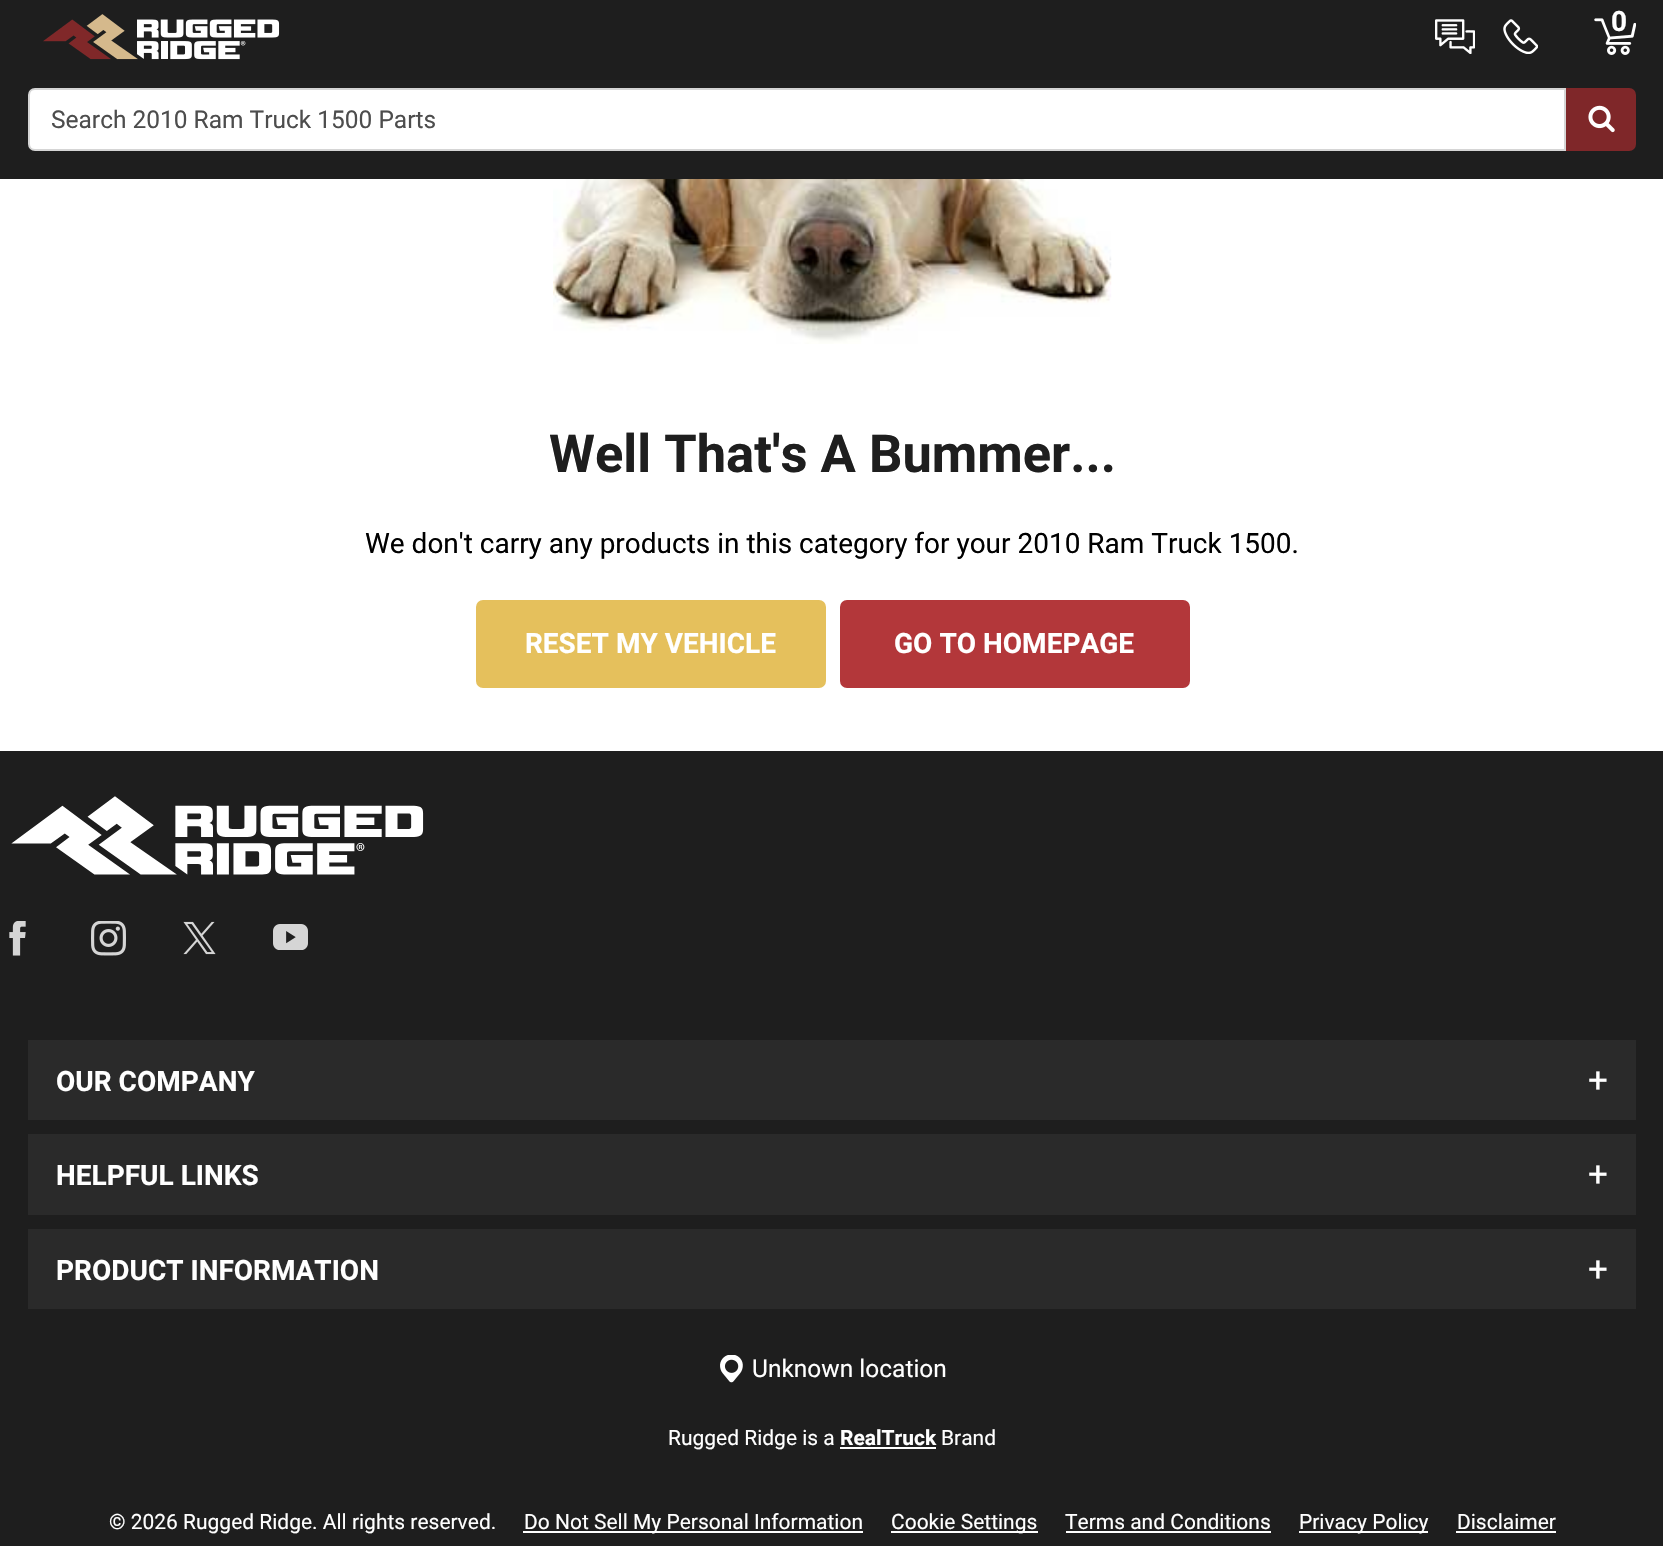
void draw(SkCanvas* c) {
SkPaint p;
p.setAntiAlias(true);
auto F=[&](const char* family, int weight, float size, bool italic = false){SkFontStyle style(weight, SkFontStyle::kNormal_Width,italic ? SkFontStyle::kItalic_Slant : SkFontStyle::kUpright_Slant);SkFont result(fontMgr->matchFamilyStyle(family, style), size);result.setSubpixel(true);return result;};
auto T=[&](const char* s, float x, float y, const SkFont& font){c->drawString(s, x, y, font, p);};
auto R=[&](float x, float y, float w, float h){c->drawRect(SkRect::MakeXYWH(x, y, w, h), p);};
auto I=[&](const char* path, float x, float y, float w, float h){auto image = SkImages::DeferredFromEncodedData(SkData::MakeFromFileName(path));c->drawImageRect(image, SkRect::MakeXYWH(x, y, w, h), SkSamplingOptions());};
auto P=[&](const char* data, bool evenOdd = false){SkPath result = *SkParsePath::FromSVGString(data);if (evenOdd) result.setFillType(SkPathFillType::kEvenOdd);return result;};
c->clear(0xffffffff);
p.setColor(0xff1e1e1e);
R(0,0,1663,179);
I("1.png",43,14,237,46);
I("2.png",1435,19,40,35);
I("3.png",1503,19,35,35);
I("4.png",1594,18,42,37);
auto f1 = F("Roboto",700,28);
p.setColor(0xffffffff);
T("0",1611,31,f1);
c->drawPath(P("M35 89h1530v61h-1530c-3.5 0-6-2.5-6-6v-49c0-3.5 2.5-6 6-6z"),p);
p.setStroke(true);
p.setStrokeWidth(2);
p.setColor(0xffd5d5d5);
c->drawPath(P("M35 89h1530v61h-1530c-3.5 0-6-2.5-6-6v-49c0-3.5 2.5-6 6-6z"),p);
auto f2 = F("Roboto",400,24.5);
p.setStroke(false);
p.setColor(0xff4d4d4d);
T("Search 2010 Ram Truck 1500 Parts",51,128,f2);
p.setColor(0xff7f2729);
c->drawPath(P("M1567 89h62c3.5 0 6 2.5 6 6v49c0 3.5-2.5 6-6 6h-62z"),p);
p.setStroke(true);
c->drawPath(P("M1567 89h62c3.5 0 6 2.5 6 6v49c0 3.5-2.5 6-6 6h-62z"),p);
I("5.png",1588,105,27,28);
I("6.png",553,179,559,165);
auto f3 = F("Roboto",700,52.5);
p.setStroke(false);
p.setColor(0xff1e1e1e);
T("Well That's A Bummer...",549,472,f3);
auto f4 = F("Roboto",400,28);
p.setColor(0xff000000);
T("We don't carry any products in this category for your 2010 Ram Truck 1500.",365,553,f4);
p.setColor(0xffe5c05c);
c->drawRoundRect(SkRect::MakeXYWH(477,601,348,86),6,6,p);
p.setStroke(true);
c->drawRoundRect(SkRect::MakeXYWH(477,601,348,86),6,6,p);
p.setStroke(false);
p.setColor(0xffffffff);
T("RESET MY VEHICLE",525,653,f1);
p.setColor(0xffb3373a);
c->drawRoundRect(SkRect::MakeXYWH(841,601,348,86),6,6,p);
p.setStroke(true);
c->drawRoundRect(SkRect::MakeXYWH(841,601,348,86),6,6,p);
p.setStroke(false);
p.setColor(0xffffffff);
T("GO TO HOMEPAGE",894,653,f1);
p.setColor(0xff1e1e1e);
R(0,751,1663,795);
I("7.png",11,796,413,79);
I("8.png",9,921,17,35);
I("9.png",91,921,35,35);
I("10.png",183,921,33,34);
I("11.png",273,924,35,26);
p.setColor(0xff2a2a2a);
R(28,1040,1608,80);
p.setColor(0xffffffff);
T("OUR COMPANY",56,1091,f1);
auto f5 = F("Roboto",400,35);
T("+",1588,1092,f5);
p.setColor(0xff2a2a2a);
R(28,1134,1608,81);
p.setColor(0xffffffff);
T("HELPFUL LINKS",56,1185,f1);
T("+",1588,1186,f5);
p.setColor(0xff2a2a2a);
R(28,1229,1608,80);
p.setColor(0xffffffff);
T("PRODUCT INFORMATION",56,1280,f1);
T("+",1588,1281,f5);
I("12.png",720,1355,23,28);
T("Unknown location",752,1377,f2);
auto f6 = F("Roboto",400,21);
T("Rugged Ridge is a",668,1445,f6);
auto f7 = F("Roboto",700,21);
T("RealTruck",840,1445,f7);
R(840,1447,96,2);
T("Brand",941,1445,f6);
T("© 2026 Rugged Ridge. All rights reserved.",109,1529,f6);
R(523,1531,340,2);
T("Do Not Sell My Personal Information",524,1529,f6);
R(891,1531,147,2);
T("Cookie Settings",891,1529,f6);
T("Terms and Conditions",1065,1529,f6);
R(1066,1531,205,2);
R(1299,1531,129,2);
T("Privacy Policy",1299,1529,f6);
T("Disclaimer",1457,1529,f6);
R(1456,1531,100,2);
}
